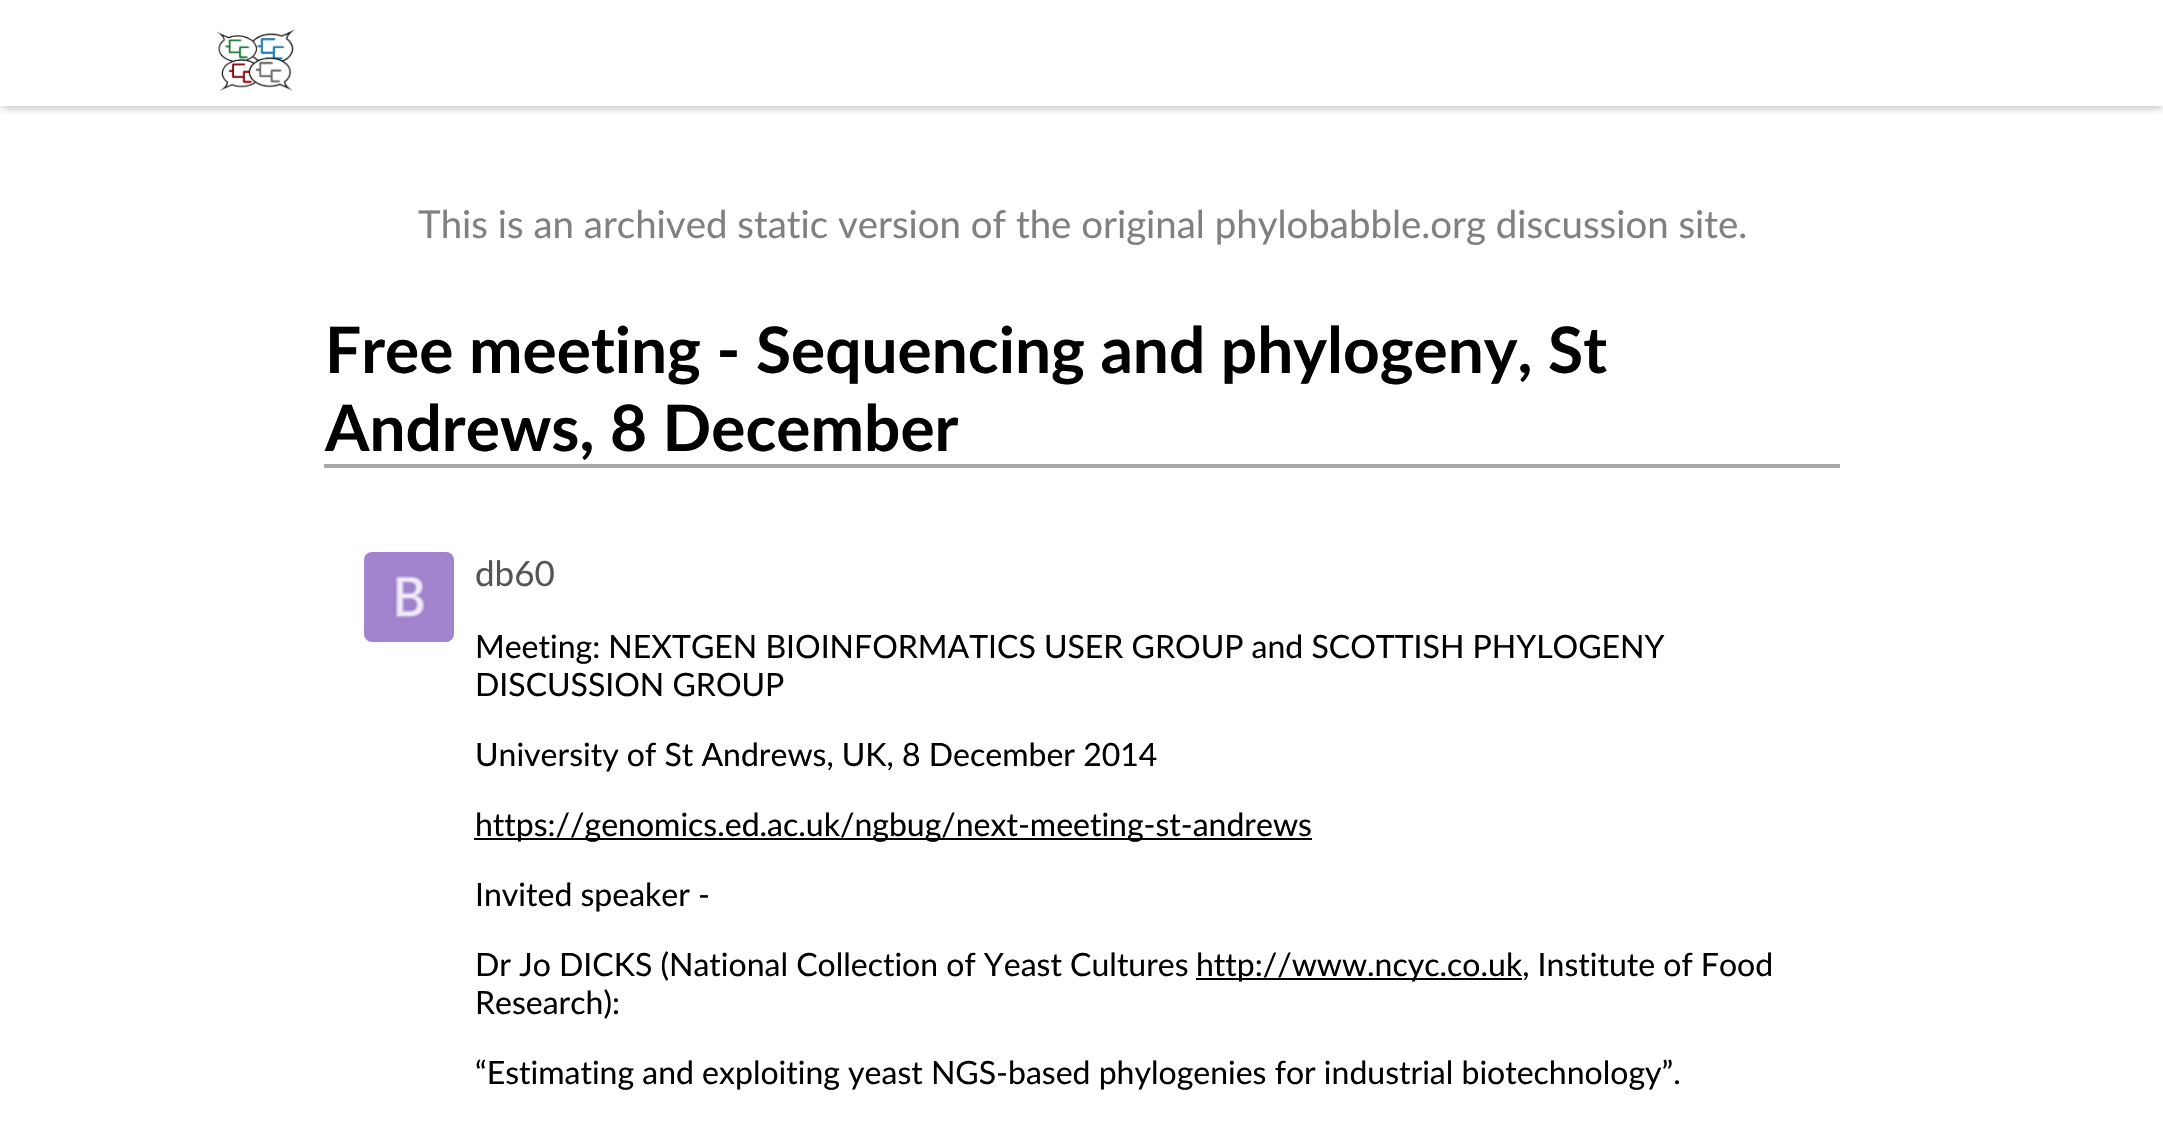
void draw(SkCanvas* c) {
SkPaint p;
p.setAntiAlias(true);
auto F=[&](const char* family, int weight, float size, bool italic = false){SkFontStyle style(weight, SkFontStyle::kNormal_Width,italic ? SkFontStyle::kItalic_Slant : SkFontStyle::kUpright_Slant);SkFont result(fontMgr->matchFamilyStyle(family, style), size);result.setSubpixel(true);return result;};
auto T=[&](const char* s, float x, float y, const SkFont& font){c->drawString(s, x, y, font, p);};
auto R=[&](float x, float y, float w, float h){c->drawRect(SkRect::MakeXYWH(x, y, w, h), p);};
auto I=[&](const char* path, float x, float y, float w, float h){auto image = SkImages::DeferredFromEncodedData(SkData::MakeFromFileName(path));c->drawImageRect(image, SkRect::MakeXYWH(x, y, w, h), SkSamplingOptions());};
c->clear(0xffffffff);
c->save();
c->clipRect(SkRect::MakeXYWH(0,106,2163,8));
p.setColor(0x40000000);
p.setMaskFilter(SkMaskFilter::MakeBlur(kNormal_SkBlurStyle, 4));
c->drawRect(SkRect::MakeXYWH(2,6,2160,102),p);
p.setMaskFilter(nullptr);
c->restore();
I("1.png",216,29,80,63);
auto f1 = F("Lato",400,38.4);
p.setColor(0xff808080);
T("This is an archived static version of the original phylobabble.org discussion site.",418,238,f1);
p.setColor(0xffa9a9a9);
R(324,464,1516,4);
auto f2 = F("Lato",700,64);
p.setColor(0xff000000);
T("Free meeting - Sequencing and phylogeny, St",325,373,f2);
T("Andrews, 8 December",325,451,f2);
I("2.png",364,552,90,90);
auto f3 = F("Lato",400,35);
p.setColor(0xff555555);
T("db60",475,586,f3);
auto f4 = F("Lato",400,32);
p.setColor(0xff000000);
T("Meeting: NEXTGEN BIOINFORMATICS USER GROUP and SCOTTISH PHYLOGENY",475,658,f4);
T("DISCUSSION GROUP",475,696,f4);
T("University of St Andrews, UK, 8 December 2014",475,766,f4);
R(474,838,838,2);
T("https://genomics.ed.ac.uk/ngbug/next-meeting-st-andrews",475,836,f4);
T("Invited speaker -",475,906,f4);
T("Dr Jo DICKS (National Collection of Yeast Cultures",475,976,f4);
R(1196,978,326,2);
T("http://www.ncyc.co.uk, Institute of Food",1196,976,f4);
T("Research):",475,1014,f4);
T("“Estimating and exploiting yeast NGS-based phylogenies for industrial biotechnology”.",475,1084,f4);
}
